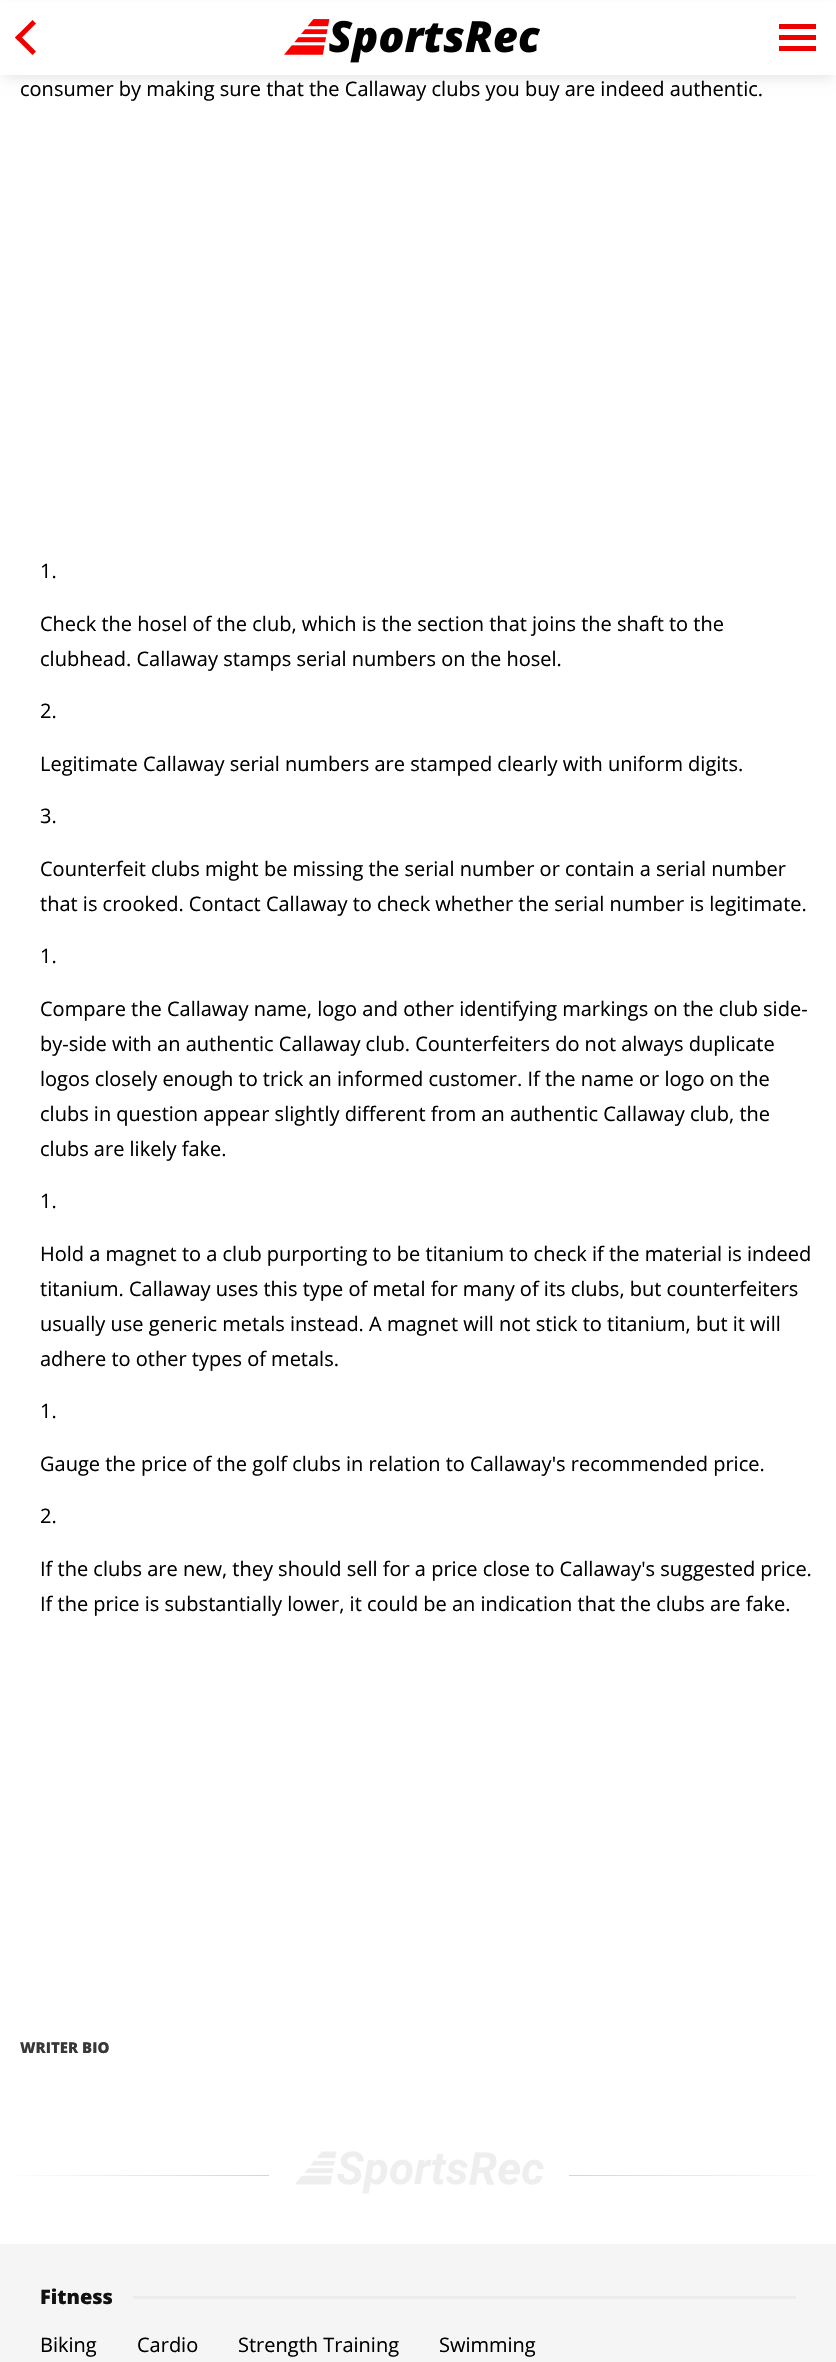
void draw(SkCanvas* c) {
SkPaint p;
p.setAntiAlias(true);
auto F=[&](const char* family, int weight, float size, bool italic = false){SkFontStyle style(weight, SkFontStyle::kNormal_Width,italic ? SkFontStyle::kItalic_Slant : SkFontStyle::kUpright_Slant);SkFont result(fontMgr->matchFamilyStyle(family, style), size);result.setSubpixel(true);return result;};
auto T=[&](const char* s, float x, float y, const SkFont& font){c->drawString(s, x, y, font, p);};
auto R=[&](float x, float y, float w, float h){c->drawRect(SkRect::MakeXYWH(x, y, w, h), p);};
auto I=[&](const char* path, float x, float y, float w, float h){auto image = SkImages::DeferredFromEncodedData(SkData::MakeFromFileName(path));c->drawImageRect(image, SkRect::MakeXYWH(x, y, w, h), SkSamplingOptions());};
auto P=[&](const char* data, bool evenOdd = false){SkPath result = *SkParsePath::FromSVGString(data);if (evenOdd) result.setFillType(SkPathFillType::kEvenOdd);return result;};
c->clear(0xffffffff);
p.setColor(0x1a000000);
p.setMaskFilter(SkMaskFilter::MakeBlur(kNormal_SkBlurStyle, 6));
c->drawRect(SkRect::MakeXYWH(4,10,829,68),p);
p.setMaskFilter(nullptr);
p.setColor(0xffffffff);
R(0,2,836,73);
p.setColor(0xffec0000);
c->drawPath(P("M18.5 34l17.5 17.5l-3.5 3.5l-17.5-17.5z"),p);
c->drawPath(P("M32.5 20l3.5 3.5l-17.5 17.5l-3.5-3.5z"),p);
I("1.png",284,19,256,44);
R(779,24,37,5);
R(779,35,37,5);
R(779,46,37,5);
auto f1 = F("Open Sans",400,20);
p.setColor(0xff000000);
T("consumer by making sure that the Callaway clubs you buy are indeed authentic.",20,96,f1);
T("1.",40,578,f1);
T("Check the hosel of the club, which is the section that joins the shaft to the",40,631,f1);
T("clubhead. Callaway stamps serial numbers on the hosel.",40,666,f1);
T("2.",40,718,f1);
T("Legitimate Callaway serial numbers are stamped clearly with uniform digits.",40,771,f1);
T("3.",40,823,f1);
T("Counterfeit clubs might be missing the serial number or contain a serial number",40,876,f1);
T("that is crooked. Contact Callaway to check whether the serial number is legitimate.",40,911,f1);
T("1.",40,963,f1);
T("Compare the Callaway name, logo and other identifying markings on the club side-",40,1016,f1);
T("by-side with an authentic Callaway club. Counterfeiters do not always duplicate",40,1051,f1);
T("logos closely enough to trick an informed customer. If the name or logo on the",40,1086,f1);
T("clubs in question appear slightly different from an authentic Callaway club, the",40,1121,f1);
T("clubs are likely fake.",40,1156,f1);
T("1.",40,1208,f1);
T("Hold a magnet to a club purporting to be titanium to check if the material is indeed",40,1261,f1);
T("titanium. Callaway uses this type of metal for many of its clubs, but counterfeiters",40,1296,f1);
T("usually use generic metals instead. A magnet will not stick to titanium, but it will",40,1331,f1);
T("adhere to other types of metals.",40,1366,f1);
T("1.",40,1418,f1);
T("Gauge the price of the golf clubs in relation to Callaway's recommended price.",40,1471,f1);
T("2.",40,1523,f1);
T("If the clubs are new, they should sell for a price close to Callaway's suggested price.",40,1576,f1);
T("If the price is substantially lower, it could be an indication that the clubs are fake.",40,1611,f1);
auto f2 = F("Open Sans",800,15);
p.setColor(0xff383838);
T("WRITER BIO",20,2053,f2);
{
const SkColor colors[] = {0xffd5d5d5,0xffffffff};
const float stops[] = {0,1};
const SkPoint ends[] = {{269,2176}, {0,2176}};
p.setShader(SkGradientShader::MakeLinear(ends, colors, stops, 2, SkTileMode::kClamp));
p.setAlpha(255);
}
R(16,2175,253,1);
I("2.png",295,2151,249,43);
{
const SkColor colors[] = {0xffd5d5d5,0xffffffff};
const float stops[] = {0,1};
const SkPoint ends[] = {{569,2176}, {836,2176}};
p.setShader(SkGradientShader::MakeLinear(ends, colors, stops, 2, SkTileMode::kClamp));
p.setAlpha(255);
}
R(569,2175,251,1);
p.setShader(nullptr);
p.setColor(0xfff5f5f5);
R(0,2244,836,118);
auto f3 = F("Open Sans",800,20);
p.setColor(0xff121212);
T("Fitness",40,2304,f3);
p.setColor(0xffececec);
R(133,2296,663,3);
p.setColor(0xff000000);
T("Biking",40,2352,f1);
T("Cardio",137,2352,f1);
T("Strength Training",238,2352,f1);
T("Swimming",439,2352,f1);
}
